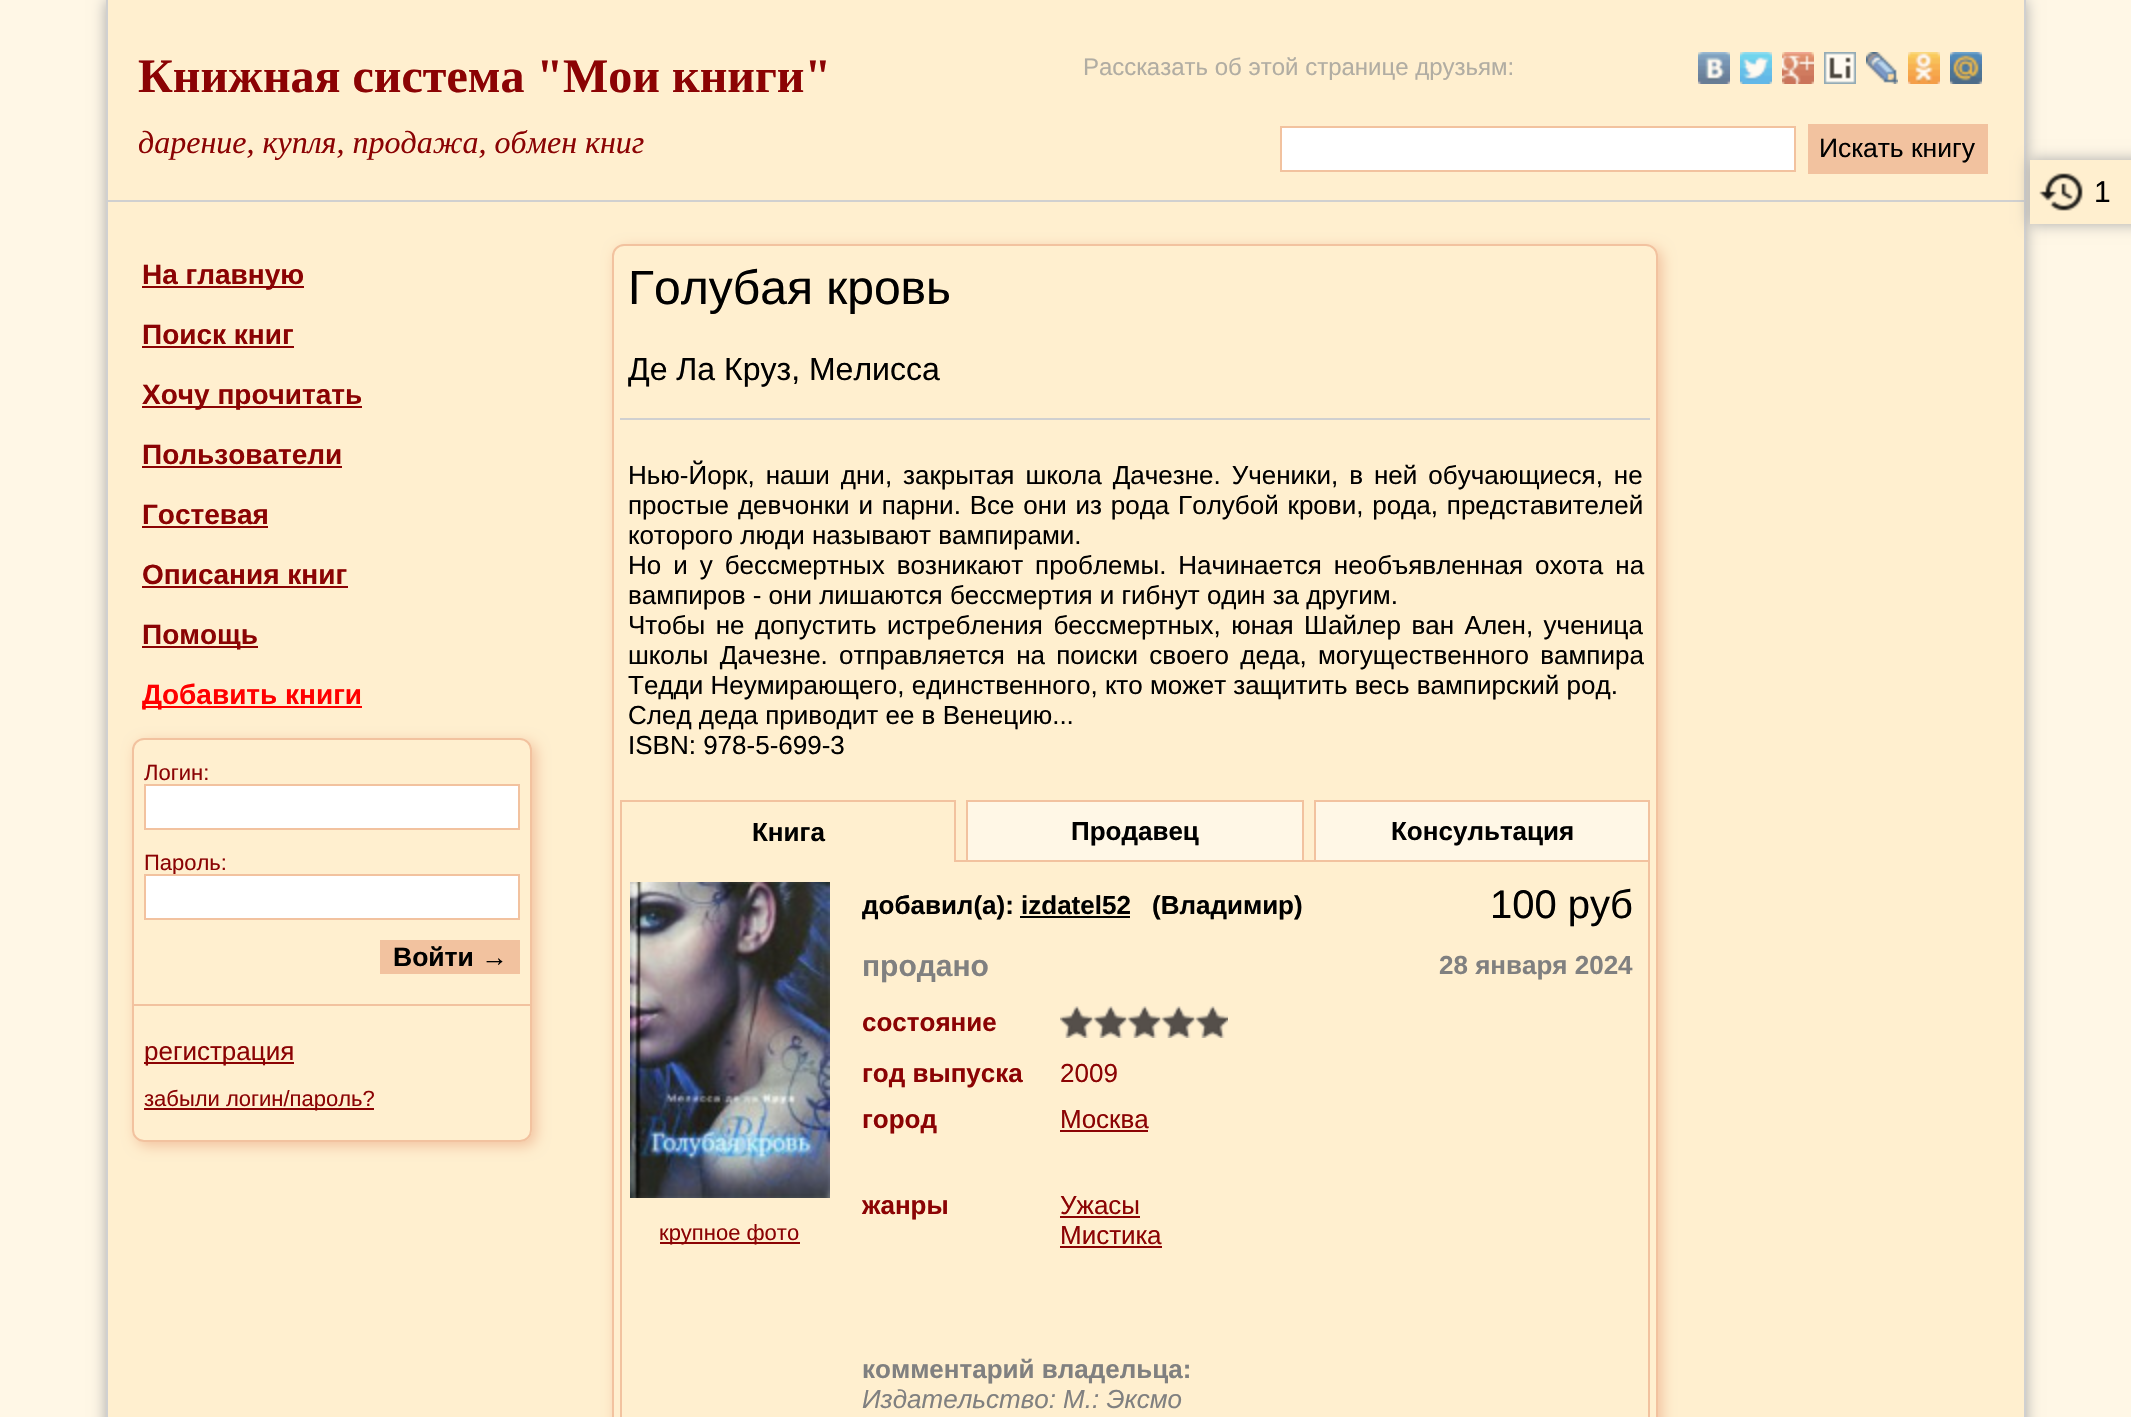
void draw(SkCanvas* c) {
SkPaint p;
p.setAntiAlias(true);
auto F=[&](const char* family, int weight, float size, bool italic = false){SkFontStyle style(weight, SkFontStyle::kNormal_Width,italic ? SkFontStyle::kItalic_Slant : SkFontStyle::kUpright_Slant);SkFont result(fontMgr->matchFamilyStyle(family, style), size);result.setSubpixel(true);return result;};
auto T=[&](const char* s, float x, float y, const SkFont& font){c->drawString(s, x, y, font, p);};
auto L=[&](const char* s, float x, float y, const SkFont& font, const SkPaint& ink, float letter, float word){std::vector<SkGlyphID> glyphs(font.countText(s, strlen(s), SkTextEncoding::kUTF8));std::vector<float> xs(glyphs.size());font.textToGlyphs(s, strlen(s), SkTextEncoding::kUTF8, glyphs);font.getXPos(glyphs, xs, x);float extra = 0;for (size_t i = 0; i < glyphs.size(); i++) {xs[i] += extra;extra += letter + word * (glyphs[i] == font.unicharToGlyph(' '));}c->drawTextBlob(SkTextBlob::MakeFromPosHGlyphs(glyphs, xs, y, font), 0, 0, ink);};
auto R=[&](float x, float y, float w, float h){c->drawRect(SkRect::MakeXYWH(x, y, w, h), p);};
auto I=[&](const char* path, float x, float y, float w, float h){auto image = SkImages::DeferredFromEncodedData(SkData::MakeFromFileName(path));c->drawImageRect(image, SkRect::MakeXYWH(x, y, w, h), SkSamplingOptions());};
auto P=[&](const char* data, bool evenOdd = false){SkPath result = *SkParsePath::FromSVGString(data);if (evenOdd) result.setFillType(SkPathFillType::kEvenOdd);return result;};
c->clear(0xfffff7e6);
p.setColor(0xffaaaaaa);
p.setMaskFilter(SkMaskFilter::MakeBlur(kNormal_SkBlurStyle, 7));
c->drawRect(SkRect::MakeXYWH(106,0,1920,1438),p);
p.setMaskFilter(nullptr);
p.setColor(0xffffefcf);
R(108,0,1916,1417);
p.setColor(0xffd0d0d0);
R(2024,0,2,1417);
R(106,0,2,1417);
R(108,200,1916,2);
auto f1 = F("Liberation Serif",700,48);
p.setColor(0xff8b0304);
T("Книжная система \"Мои книги\"",138,92,f1);
auto f2 = F("Liberation Sans",400,24);
p.setColor(0xffb1ada3);
T("Рассказать об этой странице друзьям:",1083,75,f2);
I("1.png",1698,52,32,32);
I("2.png",1740,52,32,32);
I("3.png",1782,52,32,32);
I("4.png",1824,52,32,32);
I("5.png",1866,52,32,32);
I("6.png",1908,52,32,32);
I("7.png",1950,52,32,32);
auto f3 = F("Liberation Serif",400,32,true);
p.setColor(0xff8b0304);
T("дарение, купля, продажа, обмен книг",138,153,f3);
p.setColor(0xffffffff);
c->drawRect(SkRect::MakeXYWH(1281,127,514,44),p);
p.setStroke(true);
p.setStrokeWidth(2);
p.setColor(0xfff2c29f);
c->drawRect(SkRect::MakeXYWH(1281,127,514,44),p);
p.setStroke(false);
R(1808,124,180,50);
auto f4 = F("Liberation Sans",400,26.5);
p.setColor(0xff000000);
T("Искать книгу",1819,157,f4);
p.setColor(0xffaaaaaa);
p.setMaskFilter(SkMaskFilter::MakeBlur(kNormal_SkBlurStyle, 7));
c->drawRect(SkRect::MakeXYWH(2030,160,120,64),p);
p.setMaskFilter(nullptr);
p.setColor(0xffffefcf);
R(2030,160,101,64);
I("8.png",2039,173,44,38);
auto f5 = F("Liberation Sans",400,30);
p.setColor(0xff000000);
T("1",2094,202,f5);
p.setColor(0xff8b0304);
R(142,286,162,2);
auto f6 = F("Liberation Sans",700,28);
T("На главную",142,284,f6);
T("Поиск книг",142,344,f6);
R(142,346,152,2);
R(142,406,220,2);
T("Хочу прочитать",142,404,f6);
T("Пользователи",142,464,f6);
R(142,466,200,2);
T("Гостевая",142,524,f6);
R(142,526,126,2);
T("Описания книг",142,584,f6);
R(142,586,206,2);
R(142,646,116,2);
T("Помощь",142,644,f6);
p.setColor(0xffff0000);
R(142,706,220,2);
T("Добавить книги",142,704,f6);
c->save();
c->clipPath(P("M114 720h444v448h-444zm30 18h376c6.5 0 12 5.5 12 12v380c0 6.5-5.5 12-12 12h-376c-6.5 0-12-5.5-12-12v-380c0-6.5 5.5-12 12-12z",true),true);
p.setColor(0xfff2c29f);
p.setMaskFilter(SkMaskFilter::MakeBlur(kNormal_SkBlurStyle, 7));
c->drawRoundRect(SkRect::MakeXYWH(136,742,400,404),12,12,p);
p.setMaskFilter(nullptr);
c->restore();
p.setStroke(true);
c->drawRoundRect(SkRect::MakeXYWH(133,739,398,402),11,11,p);
auto f7 = F("Liberation Sans",400,22);
p.setStroke(false);
p.setColor(0xff8b0304);
T("Логин:",144,780,f7);
p.setColor(0xffffffff);
c->drawRect(SkRect::MakeXYWH(145,785,374,44),p);
p.setStroke(true);
p.setColor(0xfff2c29f);
c->drawRect(SkRect::MakeXYWH(145,785,374,44),p);
p.setStroke(false);
p.setColor(0xff8b0304);
T("Пароль:",144,870,f7);
p.setColor(0xffffffff);
c->drawRect(SkRect::MakeXYWH(145,875,374,44),p);
p.setStroke(true);
p.setColor(0xfff2c29f);
c->drawRect(SkRect::MakeXYWH(145,875,374,44),p);
p.setStroke(false);
R(380,940,140,34);
auto f8 = F("Liberation Sans",700,26.5);
p.setColor(0xff000000);
T("Войти →",393,966,f8);
p.setColor(0xfff2c29f);
R(134,1004,396,2);
p.setColor(0xff8b0304);
R(144,1062,150,2);
auto f9 = F("Liberation Sans",400,26);
T("регистрация",144,1060,f9);
R(144,1108,230,2);
T("забыли логин/пароль?",144,1106,f7);
c->save();
c->clipPath(P("M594 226h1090v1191h-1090zm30 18h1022c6.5 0 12 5.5 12 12v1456c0 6.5-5.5 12-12 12h-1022c-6.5 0-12-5.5-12-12v-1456c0-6.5 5.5-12 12-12z",true),true);
p.setColor(0xfff2c29f);
p.setMaskFilter(SkMaskFilter::MakeBlur(kNormal_SkBlurStyle, 7));
c->drawRoundRect(SkRect::MakeXYWH(616,248,1046,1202),12,12,p);
p.setMaskFilter(nullptr);
c->restore();
p.setStroke(true);
c->drawRoundRect(SkRect::MakeXYWH(613,245,1044,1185),11,11,p);
p.setStroke(false);
p.setColor(0xffd0d0d0);
R(620,418,1030,2);
auto f10 = F("Liberation Sans",400,48);
p.setColor(0xff000000);
T("Голубая кровь",628,304,f10);
auto f11 = F("Liberation Sans",400,32);
T("Де Ла Круз, Мелисса",628,380,f11);
L("Нью-Йорк, наши дни, закрытая школа Дачезне. Ученики, в ней обучающиеся, не",628,484,f9,p,0,3.75);
L("простые девчонки и парни. Все они из рода Голубой крови, рода, представителей",628,514,f9,p,0,1.6);
T("которого люди называют вампирами.",628,544,f9);
L("Но и у бессмертных возникают проблемы. Начинается необъявленная охота на",628,574,f9,p,0,4.75);
T("вампиров - они лишаются бессмертия и гибнут один за другим.",628,604,f9);
L("Чтобы не допустить истребления бессмертных, юная Шайлер ван Ален, ученица",628,634,f9,p,0,3.25);
L("школы Дачезне. отправляется на поиски своего деда, могущественного вампира",628,664,f9,p,0,4);
T("Тедди Неумирающего, единственного, кто может защитить весь вампирский род.",628,694,f9);
T("След деда приводит ее в Венецию...",628,724,f9);
T("ISBN: 978-5-699-3",628,754,f9);
p.setColor(0xfff2c29f);
R(620,800,336,2);
R(954,800,2,62);
R(620,800,2,617);
auto f12 = F("Liberation Sans",700,26);
p.setColor(0xff000000);
T("Книга",752,841,f12);
p.setColor(0xfffff7e6);
c->drawRect(SkRect::MakeXYWH(967,801,336,60),p);
p.setStroke(true);
p.setColor(0xfff2c29f);
c->drawRect(SkRect::MakeXYWH(967,801,336,60),p);
p.setStroke(false);
p.setColor(0xff000000);
T("Продавец",1071,840,f12);
p.setColor(0xfffff7e6);
c->drawRect(SkRect::MakeXYWH(1315,801,334,60),p);
p.setStroke(true);
p.setColor(0xfff2c29f);
c->drawRect(SkRect::MakeXYWH(1315,801,334,60),p);
p.setStroke(false);
p.setColor(0xff000000);
T("Консультация",1391,840,f12);
p.setColor(0xfff2c29f);
R(956,860,10,2);
R(1304,860,10,2);
I("9.png",630,882,200,316);
p.setColor(0xff8b0304);
R(660,1242,140,2);
T("крупное фото",659,1240,f7);
p.setColor(0xfff2c29f);
R(1648,862,2,555);
p.setColor(0xff000000);
T("добавил(a): izdatel52",862,914,f12);
R(1020,916,110,2);
T("(Владимир)",1152,914,f12);
auto f13 = F("Liberation Sans",400,40);
T("100 руб",1490,918,f13);
auto f14 = F("Liberation Sans",700,30);
p.setColor(0xff808080);
T("продано",862,976,f14);
T("28 января 2024",1439,974,f12);
p.setColor(0xff8b0304);
T("состояние",862,1031,f12);
I("10.png",1060,1006,168,32);
T("год выпуска",862,1082,f12);
T("2009",1060,1082,f9);
T("город",862,1128,f12);
T("Москва",1060,1128,f9);
R(1060,1130,88,2);
T("жанры",862,1214,f12);
T("Ужасы",1060,1214,f9);
R(1060,1216,80,2);
T("Мистика",1060,1244,f9);
R(1060,1246,102,2);
p.setColor(0xff808080);
T("комментарий владельца:",862,1378,f12);
auto f15 = F("Liberation Sans",400,26,true);
T("Издательство: М.: Эксмо",862,1408,f15);
}
